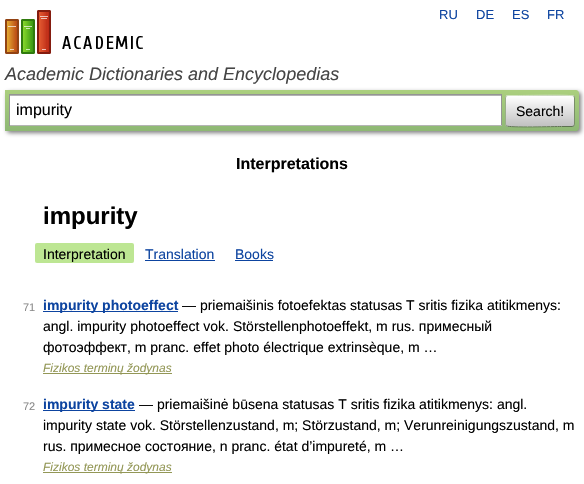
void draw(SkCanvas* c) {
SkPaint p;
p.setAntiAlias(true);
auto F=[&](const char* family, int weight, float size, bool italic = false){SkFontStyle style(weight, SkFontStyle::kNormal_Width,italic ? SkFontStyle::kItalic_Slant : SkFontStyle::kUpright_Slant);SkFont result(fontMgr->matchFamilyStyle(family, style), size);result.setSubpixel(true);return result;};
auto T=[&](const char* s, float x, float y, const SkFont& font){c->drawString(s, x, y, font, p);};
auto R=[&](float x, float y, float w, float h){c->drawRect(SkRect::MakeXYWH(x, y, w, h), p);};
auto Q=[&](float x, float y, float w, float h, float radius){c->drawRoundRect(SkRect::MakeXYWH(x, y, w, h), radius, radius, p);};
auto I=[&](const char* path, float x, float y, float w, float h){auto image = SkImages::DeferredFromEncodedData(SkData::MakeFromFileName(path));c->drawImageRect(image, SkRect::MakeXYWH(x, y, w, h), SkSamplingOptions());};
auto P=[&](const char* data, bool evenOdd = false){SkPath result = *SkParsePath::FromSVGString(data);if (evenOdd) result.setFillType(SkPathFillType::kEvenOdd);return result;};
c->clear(0xffffffff);
I("1.png",5,10,138,44);
auto f1 = F("Liberation Sans",400,13);
p.setColor(0xff0d44a0);
T("RU",439,19,f1);
T("DE",476,19,f1);
T("ES",512,19,f1);
T("FR",547,19,f1);
auto f2 = F("Liberation Sans",400,18,true);
p.setColor(0xff454545);
T("Academic Dictionaries and Encyclopedias",5,80,f2);
p.setColor(0x80000000);
p.setMaskFilter(SkMaskFilter::MakeBlur(kNormal_SkBlurStyle, 2));
c->drawRoundRect(SkRect::MakeXYWH(7,92,574,41),3,3,p);
p.setMaskFilter(nullptr);
{
const SkColor colors[] = {0xffabcf7e,0xff8eb874};
const float stops[] = {0,1};
const SkPoint ends[] = {{292,90}, {292,131}};
p.setShader(SkGradientShader::MakeLinear(ends, colors, stops, 2, SkTileMode::kClamp));
p.setAlpha(255);
}
c->drawPath(P("M5 90h571c1.5 0 3 1.5 3 3v35c0 1.5-1.5 3-3 3h-571z"),p);
p.setShader(nullptr);
p.setColor(0xffffffff);
R(10,96,491,29);
p.setColor(0xffb3b3b3);
R(10,95,491,1);
p.setColor(0xff949494);
R(9,94,493,1);
R(501,94,1,32);
p.setColor(0xffb4b4b4);
R(9,125,493,1);
p.setColor(0xff949494);
R(9,94,1,32);
auto f3 = F("Liberation Sans",400,16);
p.setColor(0xff000000);
T("impurity",16,115,f3);
c->save();
c->clipPath(P("M508 95h64c1.5 0 3 1.5 3 3v26c0 1.5-1.5 3-3 3h-64c-1.5 0-3-1.5-3-3v-26c0-1.5 1.5-3 3-3z"),true);
{
const SkColor colors[] = {0xffffffff,0xffc1c1c1};
const float stops[] = {0,1};
const SkPoint ends[] = {{540,66}, {540,96}};
p.setShader(SkGradientShader::MakeLinear(ends, colors, stops, 2, SkTileMode::kClamp));
p.setAlpha(255);
}
R(505,95,70,1);
{
const SkColor colors[] = {0xffffffff,0xffc1c1c1};
const float stops[] = {0,1};
const SkPoint ends[] = {{540,96}, {540,126}};
p.setShader(SkGradientShader::MakeLinear(ends, colors, stops, 2, SkTileMode::kClamp));
p.setAlpha(255);
}
R(505,96,70,30);
{
const SkColor colors[] = {0xffffffff,0xffc1c1c1};
const float stops[] = {0,1};
const SkPoint ends[] = {{540,126}, {540,156}};
p.setShader(SkGradientShader::MakeLinear(ends, colors, stops, 2, SkTileMode::kClamp));
p.setAlpha(255);
}
R(505,126,70,1);
c->restore();
p.setStroke(true);
p.setStrokeWidth(1);
p.setShader(nullptr);
p.setColor(0xffd1e4bc);
c->drawPath(P("M506 96l2-.5h10.5c6.5 0 53-1 55 .5h.5"),p);
p.setColor(0xff7a8e69);
c->drawPath(P("M574 96c0 .5 .5 1.5 .5 2v26c0 .5-.5 1.5-.5 2"),p);
p.setColor(0xff5d7250);
c->drawPath(P("M574 126l-2 .5h-10.5c-6.5 0-53 1-55-.5h-.5"),p);
p.setColor(0xff9aae89);
c->drawPath(P("M506 126c0-.5-.5-1.5-.5-2v-26c0-.5 .5-1.5 .5-2"),p);
auto f4 = F("Liberation Sans",400,14);
p.setStroke(false);
p.setColor(0xff000000);
T("Search!",516,116,f4);
auto f5 = F("Liberation Sans",700,16);
T("Interpretations",236,169,f5);
auto f6 = F("Liberation Sans",700,24);
T("impurity",43,224,f6);
p.setColor(0xffbde693);
Q(35,243,99,20,2);
p.setColor(0xff000000);
T("Interpretation",43,259,f4);
p.setColor(0xff0d44a0);
T("Translation",145,259,f4);
R(145,260,70,1);
T("Books",235,259,f4);
R(235,260,38,1);
auto f7 = F("Liberation Sans",400,11);
p.setColor(0xff898989);
T("71",23,311,f7);
p.setColor(0xff0d44a0);
R(43,311,135,1);
auto f8 = F("Liberation Sans",700,14);
T("impurity photoeffect",43,310,f8);
p.setColor(0xff000000);
T("— priemaišinis fotoefektas statusas T sritis fizika atitikmenys:",182,310,f4);
T("angl. impurity photoeffect vok. Störstellenphotoeffekt, m rus. примесный",43,331,f4);
T("фотоэффект, m pranc. effet photo électrique extrinsèque, m …",43,352,f4);
p.setColor(0xff939756);
R(43,373,129,1);
auto f9 = F("Liberation Sans",400,12,true);
T("Fizikos terminų žodynas",43,372,f9);
p.setColor(0xff898989);
T("72",23,410,f7);
p.setColor(0xff0d44a0);
R(43,410,92,1);
T("impurity state",43,409,f8);
p.setColor(0xff000000);
T("— priemaišinė būsena statusas T sritis fizika atitikmenys: angl.",139,409,f4);
T("impurity state vok. Störstellenzustand, m; Störzustand, m; Verunreinigungszustand, m",43,430,f4);
T("rus. примесное состояние, n pranc. état d’impureté, m …",43,451,f4);
p.setColor(0xff939756);
R(43,472,129,1);
T("Fizikos terminų žodynas",43,471,f9);
}
